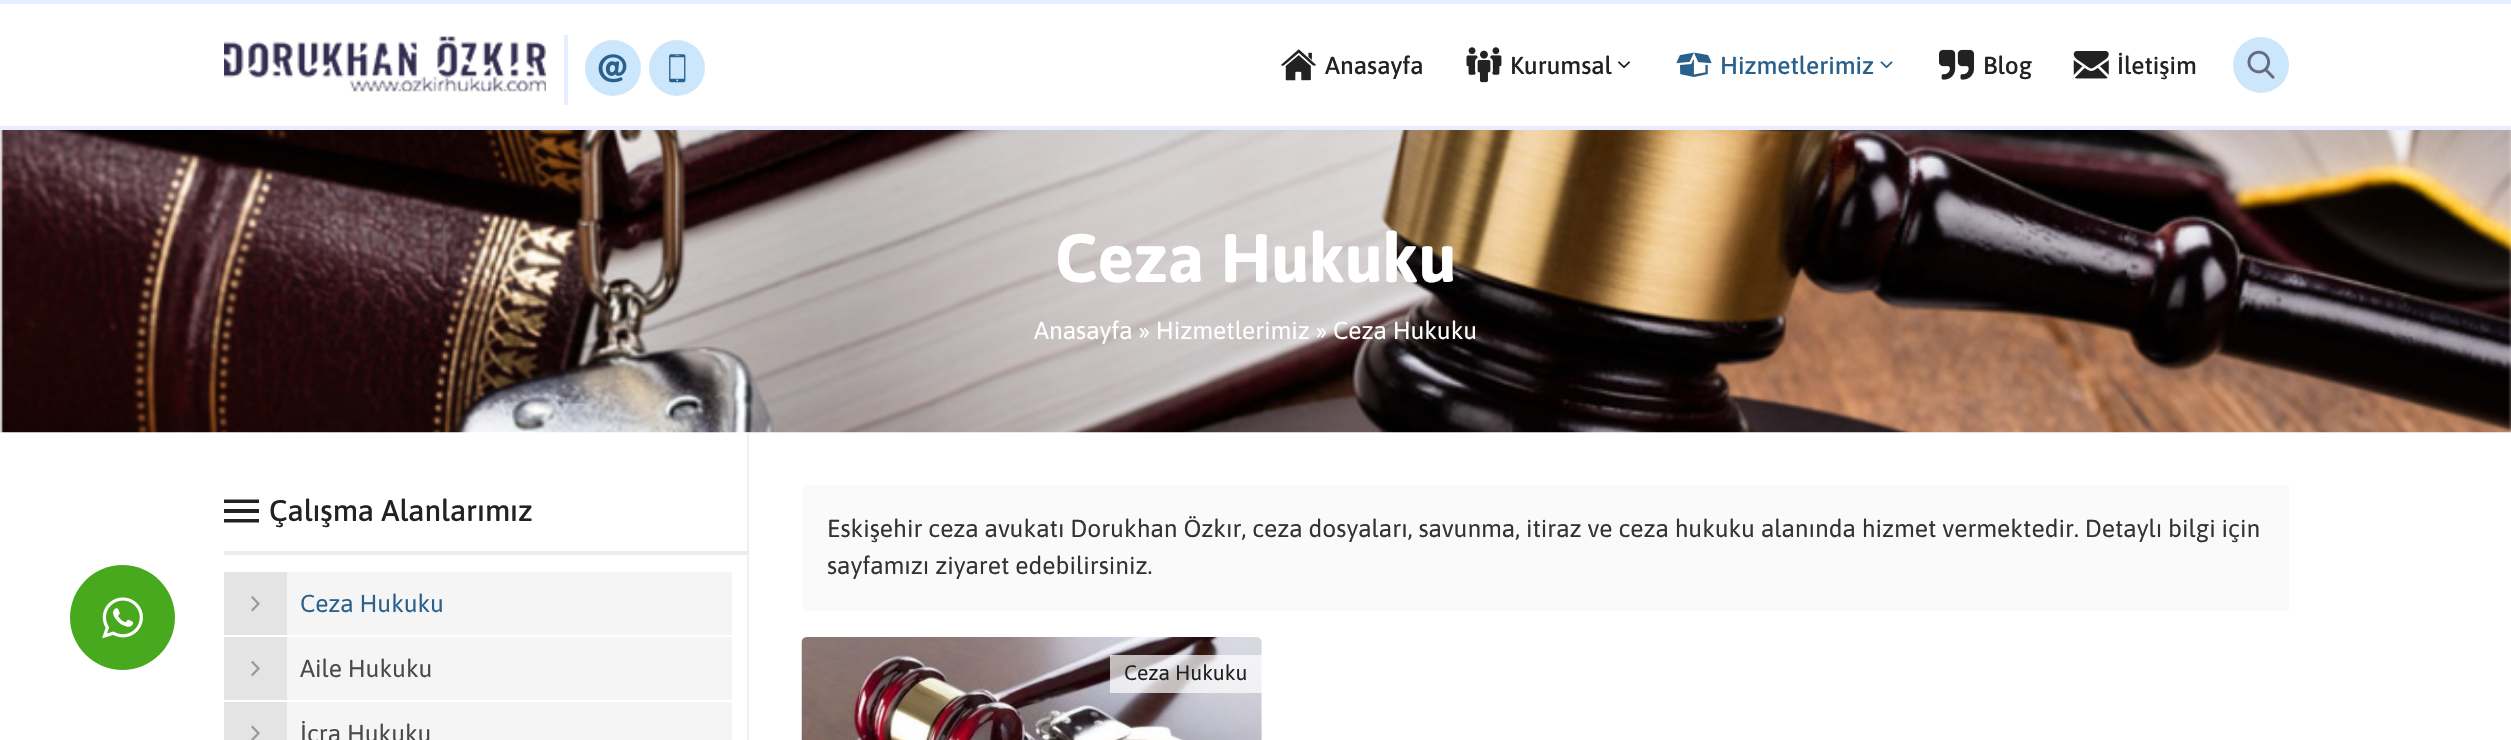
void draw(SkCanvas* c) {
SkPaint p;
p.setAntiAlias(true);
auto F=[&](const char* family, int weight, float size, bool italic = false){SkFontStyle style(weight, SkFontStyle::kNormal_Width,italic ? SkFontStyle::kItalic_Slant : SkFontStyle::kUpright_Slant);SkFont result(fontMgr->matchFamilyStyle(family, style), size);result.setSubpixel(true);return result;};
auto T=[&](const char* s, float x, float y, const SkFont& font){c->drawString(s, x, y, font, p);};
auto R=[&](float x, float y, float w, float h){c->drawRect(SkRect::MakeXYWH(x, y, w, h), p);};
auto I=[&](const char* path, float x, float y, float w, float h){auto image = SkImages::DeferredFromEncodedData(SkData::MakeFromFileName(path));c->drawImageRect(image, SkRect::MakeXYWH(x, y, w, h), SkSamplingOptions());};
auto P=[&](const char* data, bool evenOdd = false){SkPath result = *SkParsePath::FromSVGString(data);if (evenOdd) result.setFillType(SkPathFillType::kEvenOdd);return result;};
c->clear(0xffffffff);
p.setColor(0xffe6edff);
R(0,0,2511,4);
R(0,126,2511,4);
I("1.png",224,36,322,56);
R(564,35,4,70);
p.setColor(0xffcce6fc);
c->drawCircle(613,68,28,p);
I("2.png",598,54,29,29);
c->drawCircle(677,68,28,p);
I("3.png",669,54,17,29);
I("4.png",1281,49,35,32);
auto f1 = F("Asap",500,24.5);
p.setColor(0xff222222);
T("Anasayfa",1325,74,f1);
I("5.png",1466,47,36,36);
T("Kurumsal",1510,74,f1);
I("6.png",1617,61,14,8);
I("7.png",1676,52,36,25);
p.setColor(0xff2a618c);
T("Hizmetlerimiz",1720,74,f1);
I("8.png",1880,61,13,8);
I("9.png",1939,49,35,31);
p.setColor(0xff222222);
T("Blog",1983,74,f1);
I("10.png",2073,51,36,28);
T("İletişim",2117,74,f1);
p.setColor(0xffcce6fc);
c->drawCircle(2261,65,28,p);
I("11.png",2247,50,28,29);
I("12.png",0,130,2511,303);
auto f2 = F("Asap",700,68.25);
p.setColor(0xffffffff);
T("Ceza Hukuku",1055,282,f2);
auto f3 = F("Asap",400,24.5);
T("Anasayfa » Hizmetlerimiz » Ceza Hukuku",1034,339,f3);
p.setColor(0xff48a91f);
c->drawCircle(122.5,617.5,52.5,p);
I("13.png",102,597,41,42);
I("14.png",747,432,2,308);
p.setColor(0xff222222);
c->drawPath(P("M224 522.5v-3.5h35v3.5zm0-9.5v-4h35v4zm0-13.5h35v3.5h-35z"),p);
auto f4 = F("Asap",500,29.75);
T("Çalışma Alanlarımız",269,521,f4);
p.setColor(0xffededed);
R(224,551,525,4);
p.setColor(0xfff5f5f5);
R(287,572,445,63);
p.setColor(0xffe4e4e4);
R(224,572,63,63);
I("15.png",251,596,9,16);
p.setColor(0xff2a618c);
T("Ceza Hukuku",300,612,f3);
p.setColor(0xfff5f5f5);
R(287,637,445,63);
p.setColor(0xffe4e4e4);
R(224,637,63,63);
I("16.png",251,660,9,17);
p.setColor(0xff4a4a4a);
T("Aile Hukuku",300,677,f3);
p.setColor(0xfff5f5f5);
R(287,702,445,38);
p.setColor(0xffe4e4e4);
R(224,702,63,38);
I("17.png",251,725,9,15);
p.setColor(0xff4a4a4a);
T("İcra Hukuku",300,742,f3);
p.setColor(0xfffafafa);
R(802,485,1487,126);
p.setColor(0xff333333);
T("Eskişehir ceza avukatı Dorukhan Özkır, ceza dosyaları, savunma, itiraz ve ceza hukuku alanında hizmet vermektedir. Detaylı bilgi için",827,537,f3);
T("sayfamızı ziyaret edebilirsiniz.",827,574,f3);
I("18.png",801,637,461,103);
p.setColor(0xb3ffffff);
R(1110,655,152,38);
auto f5 = F("Asap",400,21);
p.setColor(0xff222222);
T("Ceza Hukuku",1124,680,f5);
}
